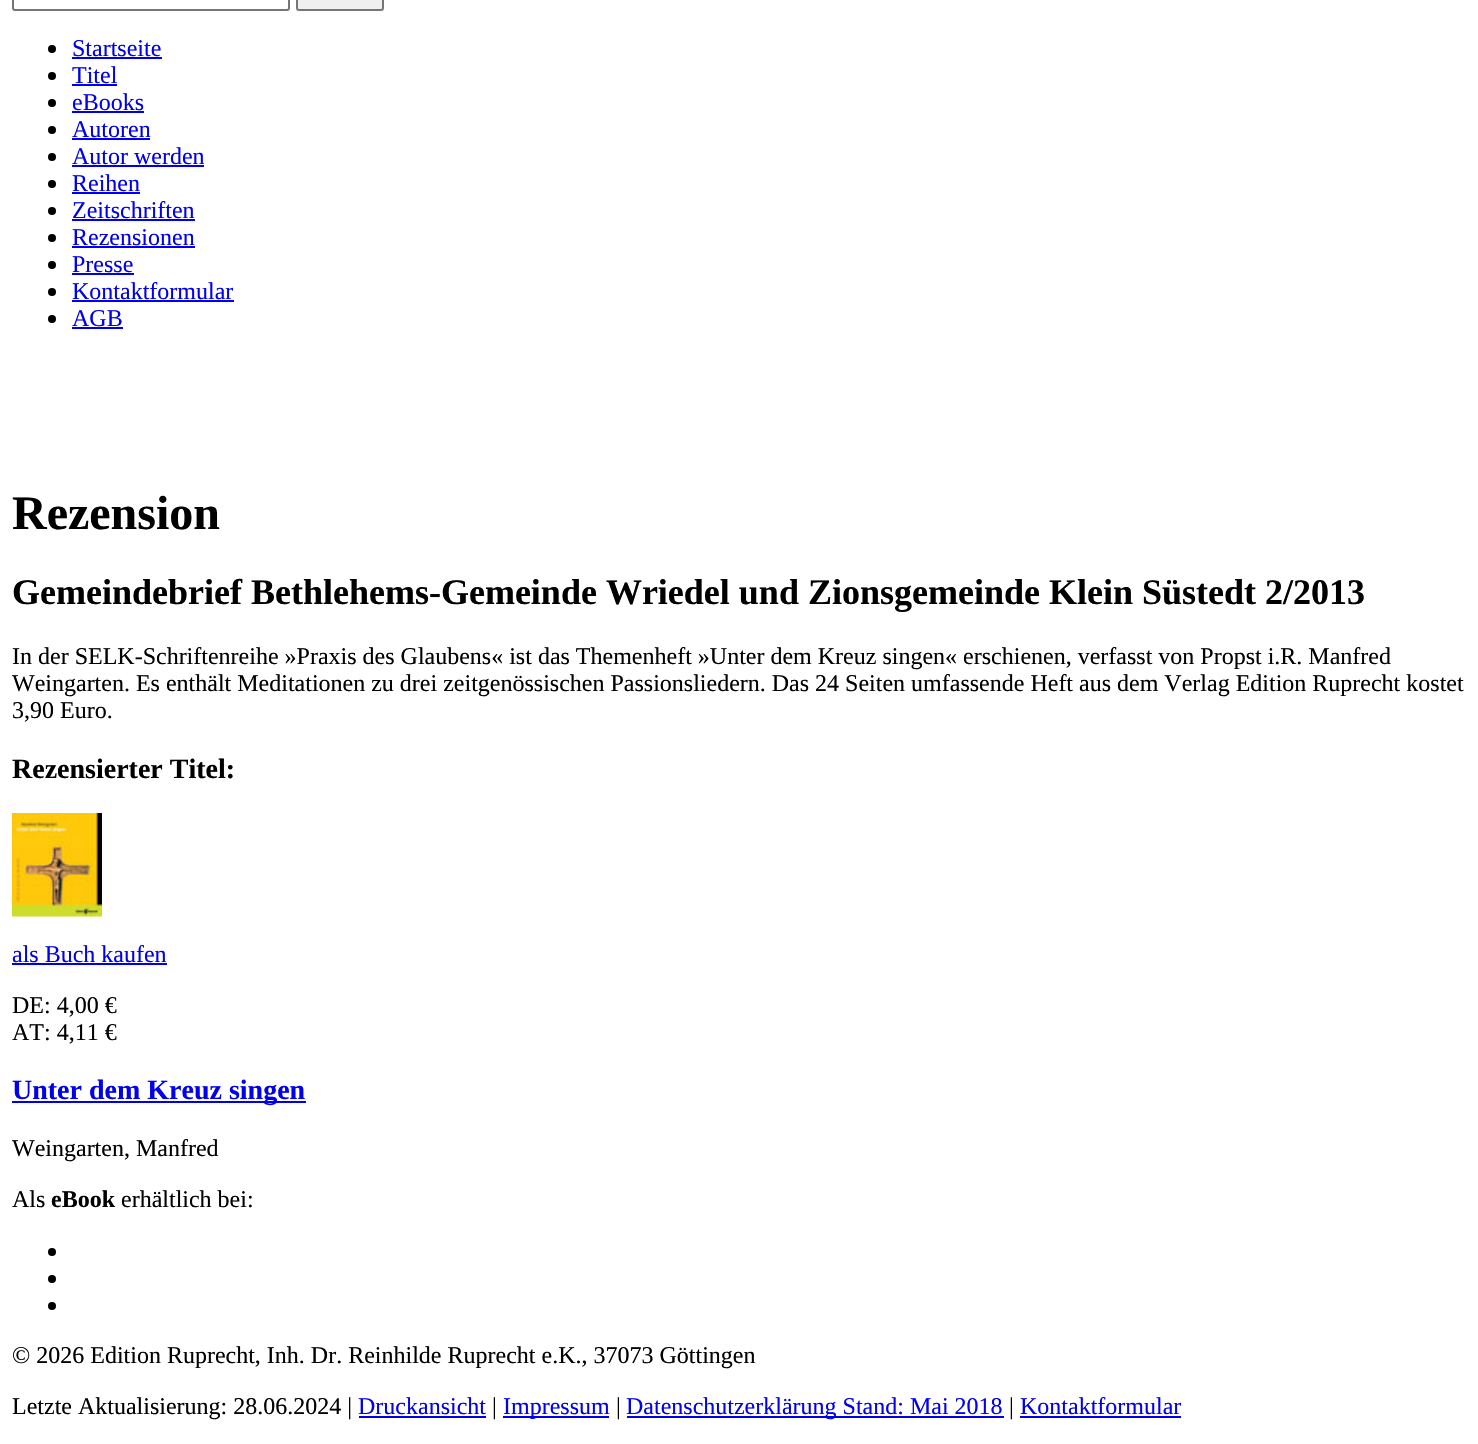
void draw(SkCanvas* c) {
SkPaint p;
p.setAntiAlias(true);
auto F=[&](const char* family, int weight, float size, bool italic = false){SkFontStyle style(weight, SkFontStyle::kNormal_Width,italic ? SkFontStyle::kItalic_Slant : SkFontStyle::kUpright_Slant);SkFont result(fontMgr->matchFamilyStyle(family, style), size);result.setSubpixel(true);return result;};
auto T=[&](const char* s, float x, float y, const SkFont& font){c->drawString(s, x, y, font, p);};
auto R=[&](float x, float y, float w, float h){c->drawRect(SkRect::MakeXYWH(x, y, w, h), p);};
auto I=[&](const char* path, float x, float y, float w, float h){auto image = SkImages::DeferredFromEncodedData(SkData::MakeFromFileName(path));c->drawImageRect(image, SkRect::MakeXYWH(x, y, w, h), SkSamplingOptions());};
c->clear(0xffffffff);
p.setStroke(true);
p.setStrokeWidth(2);
p.setColor(0xff767676);
c->drawRoundRect(SkRect::MakeXYWH(13,-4,276,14),2,2,p);
p.setStroke(false);
p.setColor(0xffefefef);
c->drawRoundRect(SkRect::MakeXYWH(297,-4,86,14),2,2,p);
p.setStroke(true);
p.setColor(0xff767676);
c->drawRoundRect(SkRect::MakeXYWH(297,-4,86,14),2,2,p);
p.setStroke(false);
p.setColor(0xff000000);
c->drawCircle(52,49,4,p);
auto f1 = F("Liberation Serif",400,24);
p.setColor(0xff0000ee);
T("Startseite",72,56,f1);
R(72,57,90,2);
p.setColor(0xff000000);
c->drawCircle(52,76,4,p);
p.setColor(0xff0000ee);
T("Titel",72,83,f1);
R(72,84,45,2);
p.setColor(0xff000000);
c->drawCircle(52,103,4,p);
p.setColor(0xff0000ee);
T("eBooks",72,110,f1);
R(72,111,72,2);
p.setColor(0xff000000);
c->drawCircle(52,130,4,p);
p.setColor(0xff0000ee);
T("Autoren",72,137,f1);
R(72,138,78,2);
p.setColor(0xff000000);
c->drawCircle(52,157,4,p);
p.setColor(0xff0000ee);
T("Autor werden",72,164,f1);
R(72,165,132,2);
p.setColor(0xff000000);
c->drawCircle(52,184,4,p);
p.setColor(0xff0000ee);
T("Reihen",72,191,f1);
R(72,192,68,2);
p.setColor(0xff000000);
c->drawCircle(52,211,4,p);
p.setColor(0xff0000ee);
T("Zeitschriften",72,218,f1);
R(72,219,123,2);
p.setColor(0xff000000);
c->drawCircle(52,238,4,p);
p.setColor(0xff0000ee);
T("Rezensionen",72,245,f1);
R(72,246,123,2);
p.setColor(0xff000000);
c->drawCircle(52,265,4,p);
p.setColor(0xff0000ee);
T("Presse",72,272,f1);
R(72,273,62,2);
p.setColor(0xff000000);
c->drawCircle(52,292,4,p);
p.setColor(0xff0000ee);
T("Kontaktformular",72,299,f1);
R(72,300,162,2);
p.setColor(0xff000000);
c->drawCircle(52,319,4,p);
p.setColor(0xff0000ee);
T("AGB",72,326,f1);
R(72,327,51,2);
auto f2 = F("Liberation Serif",700,48);
p.setColor(0xff000000);
T("Rezension",12,529,f2);
auto f3 = F("Liberation Serif",700,36);
T("Gemeindebrief Bethlehems-Gemeinde Wriedel und Zionsgemeinde Klein Süstedt 2/2013",12,604,f3);
T("In der SELK-Schriftenreihe »Praxis des Glaubens« ist das Themenheft »Unter dem Kreuz singen« erschienen, verfasst von Propst i.R. Manfred",12,664,f1);
T("Weingarten. Es enthält Meditationen zu drei zeitgenössischen Passionsliedern. Das 24 Seiten umfassende Heft aus dem Verlag Edition Ruprecht kostet",12,691,f1);
T("3,90 Euro.",12,718,f1);
auto f4 = F("Liberation Serif",700,28);
T("Rezensierter Titel:",12,778,f4);
I("1.png",12,813,90,104);
p.setColor(0xff0000ee);
T("als Buch kaufen",12,962,f1);
R(12,963,155,2);
p.setColor(0xff000000);
T("DE: 4,00 €",12,1013,f1);
T("AT: 4,11 €",12,1040,f1);
p.setColor(0xff0000ee);
R(12,1101,294,2);
T("Unter dem Kreuz singen",12,1099,f4);
p.setColor(0xff000000);
T("Weingarten, Manfred",12,1156,f1);
T("Als",12,1207,f1);
auto f5 = F("Liberation Serif",700,24);
T("eBook",51,1207,f5);
T("erhältlich bei:",121,1207,f1);
c->drawCircle(52,1252,4,p);
c->drawCircle(52,1279,4,p);
c->drawCircle(52,1306,4,p);
T("© 2026 Edition Ruprecht, Inh. Dr. Reinhilde Ruprecht e.K., 37073 Göttingen",12,1363,f1);
T("Letzte Aktualisierung: 28.06.2024 |",12,1414,f1);
p.setColor(0xff0000ee);
T("Druckansicht",358,1414,f1);
R(359,1416,127,2);
p.setColor(0xff000000);
T("|",492,1414,f1);
p.setColor(0xff0000ee);
R(503,1416,106,2);
T("Impressum",503,1414,f1);
p.setColor(0xff000000);
T("|",616,1414,f1);
p.setColor(0xff0000ee);
R(627,1416,377,2);
T("Datenschutzerklärung Stand: Mai 2018",626,1414,f1);
p.setColor(0xff000000);
T("|",1009,1414,f1);
p.setColor(0xff0000ee);
T("Kontaktformular",1020,1414,f1);
R(1020,1416,161,2);
}
